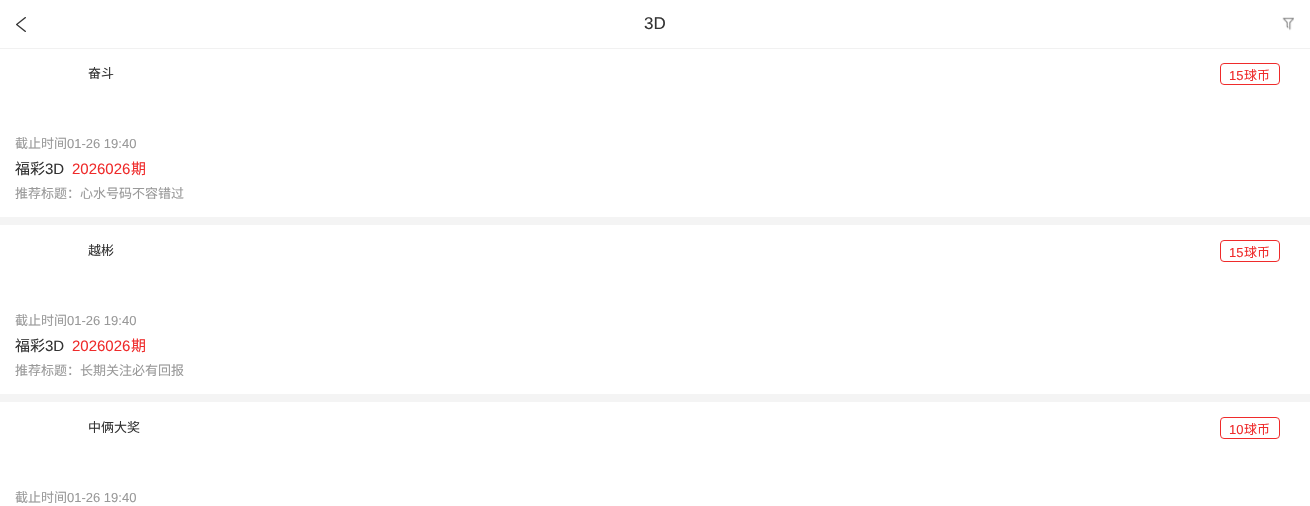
void draw(SkCanvas* c) {
SkPaint p;
p.setAntiAlias(true);
auto F=[&](const char* family, int weight, float size, bool italic = false){SkFontStyle style(weight, SkFontStyle::kNormal_Width,italic ? SkFontStyle::kItalic_Slant : SkFontStyle::kUpright_Slant);SkFont result(fontMgr->matchFamilyStyle(family, style), size);result.setSubpixel(true);return result;};
auto T=[&](const char* s, float x, float y, const SkFont& font){c->drawString(s, x, y, font, p);};
auto R=[&](float x, float y, float w, float h){c->drawRect(SkRect::MakeXYWH(x, y, w, h), p);};
auto I=[&](const char* path, float x, float y, float w, float h){auto image = SkImages::DeferredFromEncodedData(SkData::MakeFromFileName(path));c->drawImageRect(image, SkRect::MakeXYWH(x, y, w, h), SkSamplingOptions());};
c->clear(0xfff4f4f4);
p.setColor(0xffffffff);
R(0,0,1310,48);
p.setColor(0xfff1f1f1);
R(0,48,1310,1);
I("1.png",16,17,10,15);
auto f1 = F("Liberation Sans",400,17);
p.setColor(0xff333333);
T("3D",644,29,f1);
I("2.png",1282,17,12,14);
p.setColor(0xffffffff);
R(0,49,1310,168);
auto f2 = F("Noto Sans CJK SC",400,13);
p.setColor(0xff333333);
T("奋斗",88,78,f2);
p.setStroke(true);
p.setStrokeWidth(1);
p.setColor(0xffef2b2b);
c->drawRoundRect(SkRect::MakeXYWH(1220.5,63.5,59,21),3.5,3.5,p);
auto f3 = F("Liberation Sans",400,13);
p.setStroke(false);
T("15",1229,80,f3);
T("球币",1244,80,f2);
p.setColor(0xff999999);
T("截止时间",15,148,f2);
T("01-26 19:40",67,148,f3);
auto f4 = F("Noto Sans CJK SC",400,15);
p.setColor(0xff333333);
T("福彩",15,174,f4);
auto f5 = F("Liberation Sans",400,15);
T("3D",45,174,f5);
p.setColor(0xffef2b2b);
T("2026026",72,174,f5);
T("期",131,174,f4);
p.setColor(0xff999999);
T("推荐标题：心水号码不容错过",15,198,f2);
p.setColor(0xffffffff);
R(0,225,1310,169);
p.setColor(0xff333333);
T("越彬",88,255,f2);
p.setStroke(true);
p.setColor(0xffef2b2b);
c->drawRoundRect(SkRect::MakeXYWH(1220.5,240.5,59,21),3.5,3.5,p);
p.setStroke(false);
T("15",1229,257,f3);
T("球币",1244,257,f2);
p.setColor(0xff999999);
T("截止时间",15,325,f2);
T("01-26 19:40",67,325,f3);
p.setColor(0xff333333);
T("福彩",15,351,f4);
T("3D",45,351,f5);
p.setColor(0xffef2b2b);
T("2026026",72,351,f5);
T("期",131,351,f4);
p.setColor(0xff999999);
T("推荐标题：长期关注必有回报",15,375,f2);
p.setColor(0xffffffff);
R(0,402,1310,104);
p.setColor(0xff333333);
T("中俩大奖",88,432,f2);
p.setStroke(true);
p.setColor(0xffef2b2b);
c->drawRoundRect(SkRect::MakeXYWH(1220.5,417.5,59,21),3.5,3.5,p);
p.setStroke(false);
T("10",1229,434,f3);
T("球币",1244,434,f2);
p.setColor(0xff999999);
T("截止时间",15,502,f2);
T("01-26 19:40",67,502,f3);
}
